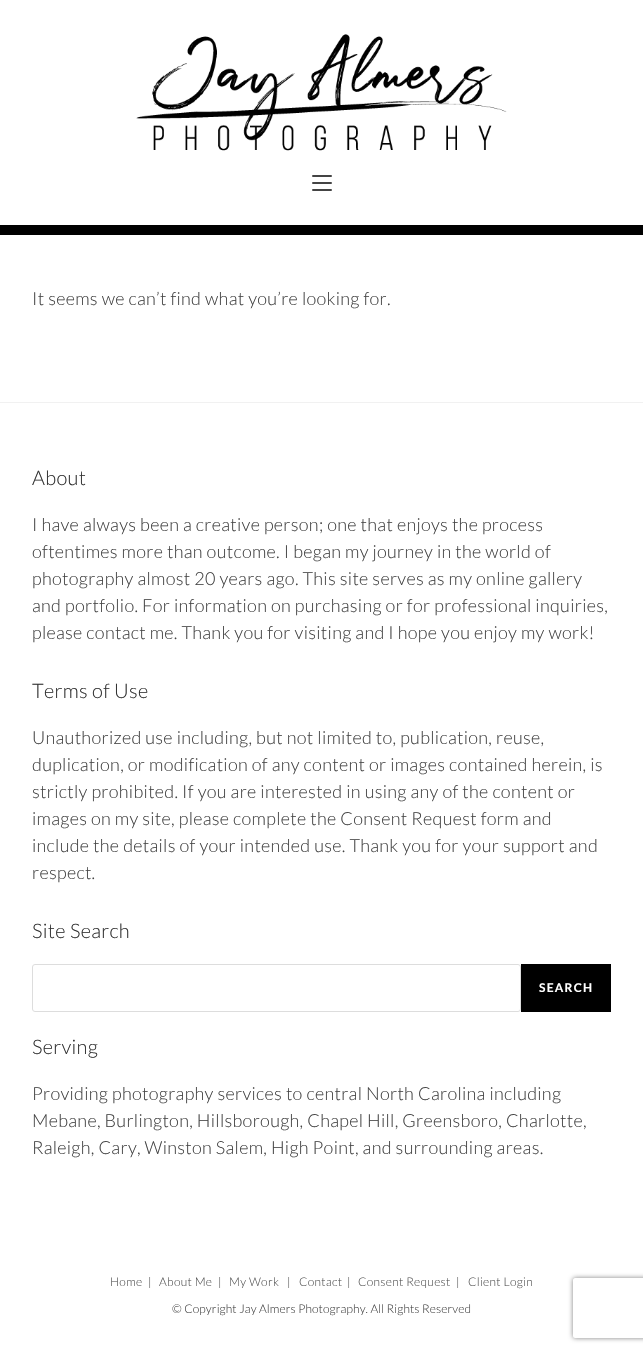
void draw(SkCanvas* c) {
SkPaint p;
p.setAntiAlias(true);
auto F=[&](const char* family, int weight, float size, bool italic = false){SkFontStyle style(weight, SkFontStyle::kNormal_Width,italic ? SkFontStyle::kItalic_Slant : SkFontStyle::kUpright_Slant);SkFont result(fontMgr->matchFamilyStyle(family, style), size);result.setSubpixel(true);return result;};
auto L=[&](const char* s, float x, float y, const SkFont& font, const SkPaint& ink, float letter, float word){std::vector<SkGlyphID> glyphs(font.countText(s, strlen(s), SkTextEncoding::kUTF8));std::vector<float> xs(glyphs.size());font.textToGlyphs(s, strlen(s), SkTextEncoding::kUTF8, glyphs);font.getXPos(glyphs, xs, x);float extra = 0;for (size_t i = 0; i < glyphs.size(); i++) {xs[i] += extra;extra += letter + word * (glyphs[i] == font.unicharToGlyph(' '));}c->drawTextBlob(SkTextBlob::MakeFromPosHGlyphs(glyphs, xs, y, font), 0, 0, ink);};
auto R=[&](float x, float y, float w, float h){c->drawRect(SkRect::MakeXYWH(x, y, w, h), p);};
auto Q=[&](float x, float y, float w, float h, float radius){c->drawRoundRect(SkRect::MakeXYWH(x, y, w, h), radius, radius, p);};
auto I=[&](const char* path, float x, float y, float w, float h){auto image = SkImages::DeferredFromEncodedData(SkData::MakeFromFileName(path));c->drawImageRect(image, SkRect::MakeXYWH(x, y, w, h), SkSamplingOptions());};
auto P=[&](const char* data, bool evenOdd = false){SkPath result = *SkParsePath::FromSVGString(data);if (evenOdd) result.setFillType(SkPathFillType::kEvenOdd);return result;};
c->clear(0xffffffff);
p.setColor(0xff000000);
R(0,225,643,10);
I("1.png",136,34,371,117);
p.setColor(0xff444444);
Q(312,182,20,2,1);
Q(312,175,20,2,1);
Q(312,189,20,2,1);
auto f1 = F("Lato",300,18);
L("It seems we can’t find what you’re looking for.",32,305,f1,p,.3,0);
p.setColor(0xfff1f1f1);
R(0,402,643,1);
auto f2 = F("Lato",300,20);
p.setColor(0xff333333);
L("About",32,485,f2,p,.3,0);
p.setColor(0xff444444);
L("I have always been a creative person; one that enjoys the process",32,531,f1,p,.3,0);
L("oftentimes more than outcome. I began my journey in the world of",32,558,f1,p,.3,0);
L("photography almost 20 years ago. This site serves as my online gallery",32,585,f1,p,.3,0);
L("and portfolio. For information on purchasing or for professional inquiries,",32,612,f1,p,.3,0);
L("please contact me. Thank you for visiting and I hope you enjoy my work!",32,639,f1,p,.3,0);
p.setColor(0xff333333);
L("Terms of Use",32,698,f2,p,.3,0);
p.setColor(0xff444444);
L("Unauthorized use including, but not limited to, publication, reuse,",32,744,f1,p,.3,0);
L("duplication, or modification of any content or images contained herein, is",32,771,f1,p,.3,0);
L("strictly prohibited. If you are interested in using any of the content or",32,798,f1,p,.3,0);
L("images on my site, please complete the Consent Request form and",32,825,f1,p,.3,0);
L("include the details of your intended use. Thank you for your support and",32,852,f1,p,.3,0);
L("respect.",32,879,f1,p,.3,0);
p.setColor(0xff333333);
L("Site Search",32,938,f2,p,.3,0);
p.setStroke(true);
p.setStrokeWidth(1);
p.setColor(0xffdddddd);
c->drawRoundRect(SkRect::MakeXYWH(32.5,964.5,488,47),2.5,2.5,p);
p.setStroke(false);
p.setColor(0xff000000);
R(521,964,90,48);
auto f3 = F("Lato",700,12);
p.setColor(0xffffffff);
L("SEARCH",539,992,f3,p,1.25,0);
p.setColor(0xff333333);
L("Serving",32,1054,f2,p,.3,0);
p.setColor(0xff444444);
L("Providing photography services to central North Carolina including",32,1100,f1,p,.3,0);
L("Mebane, Burlington, Hillsborough, Chapel Hill, Greensboro, Charlotte,",32,1127,f1,p,.3,0);
L("Raleigh, Cary, Winston Salem, High Point, and surrounding areas.",32,1154,f1,p,.3,0);
auto f4 = F("Lato",300,12);
p.setColor(0xff555555);
L("Home",110,1286,f4,p,.3,0);
p.setColor(0xff444444);
L("|",148,1286,f4,p,.3,0);
p.setColor(0xff555555);
L("About Me",159,1286,f4,p,.3,0);
p.setColor(0xff444444);
L("|",218,1286,f4,p,.3,0);
p.setColor(0xff555555);
L("My Work",229,1286,f4,p,.3,0);
p.setColor(0xff444444);
L("|",287,1286,f4,p,.3,0);
p.setColor(0xff555555);
L("Contact",299,1286,f4,p,.3,0);
p.setColor(0xff444444);
L("|",347,1286,f4,p,.3,0);
p.setColor(0xff555555);
L("Consent Request",358,1286,f4,p,.3,0);
p.setColor(0xff444444);
L("|",456,1286,f4,p,.3,0);
p.setColor(0xff555555);
L("Client Login",468,1286,f4,p,.3,0);
p.setColor(0xff444444);
L("© Copyright Jay Almers Photography. All Rights Reserved",172,1313,f4,p,.1,0);
c->save();
c->clipPath(P("M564 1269h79v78h-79zm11 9h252c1 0 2 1 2 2v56c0 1-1 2-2 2h-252c-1 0-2-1-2-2v-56c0-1 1-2 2-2z",true),true);
p.setColor(0xff808080);
p.setMaskFilter(SkMaskFilter::MakeBlur(kNormal_SkBlurStyle, 2.5));
c->drawRoundRect(SkRect::MakeXYWH(573,1278,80,60),2,2,p);
p.setMaskFilter(nullptr);
c->restore();
}
